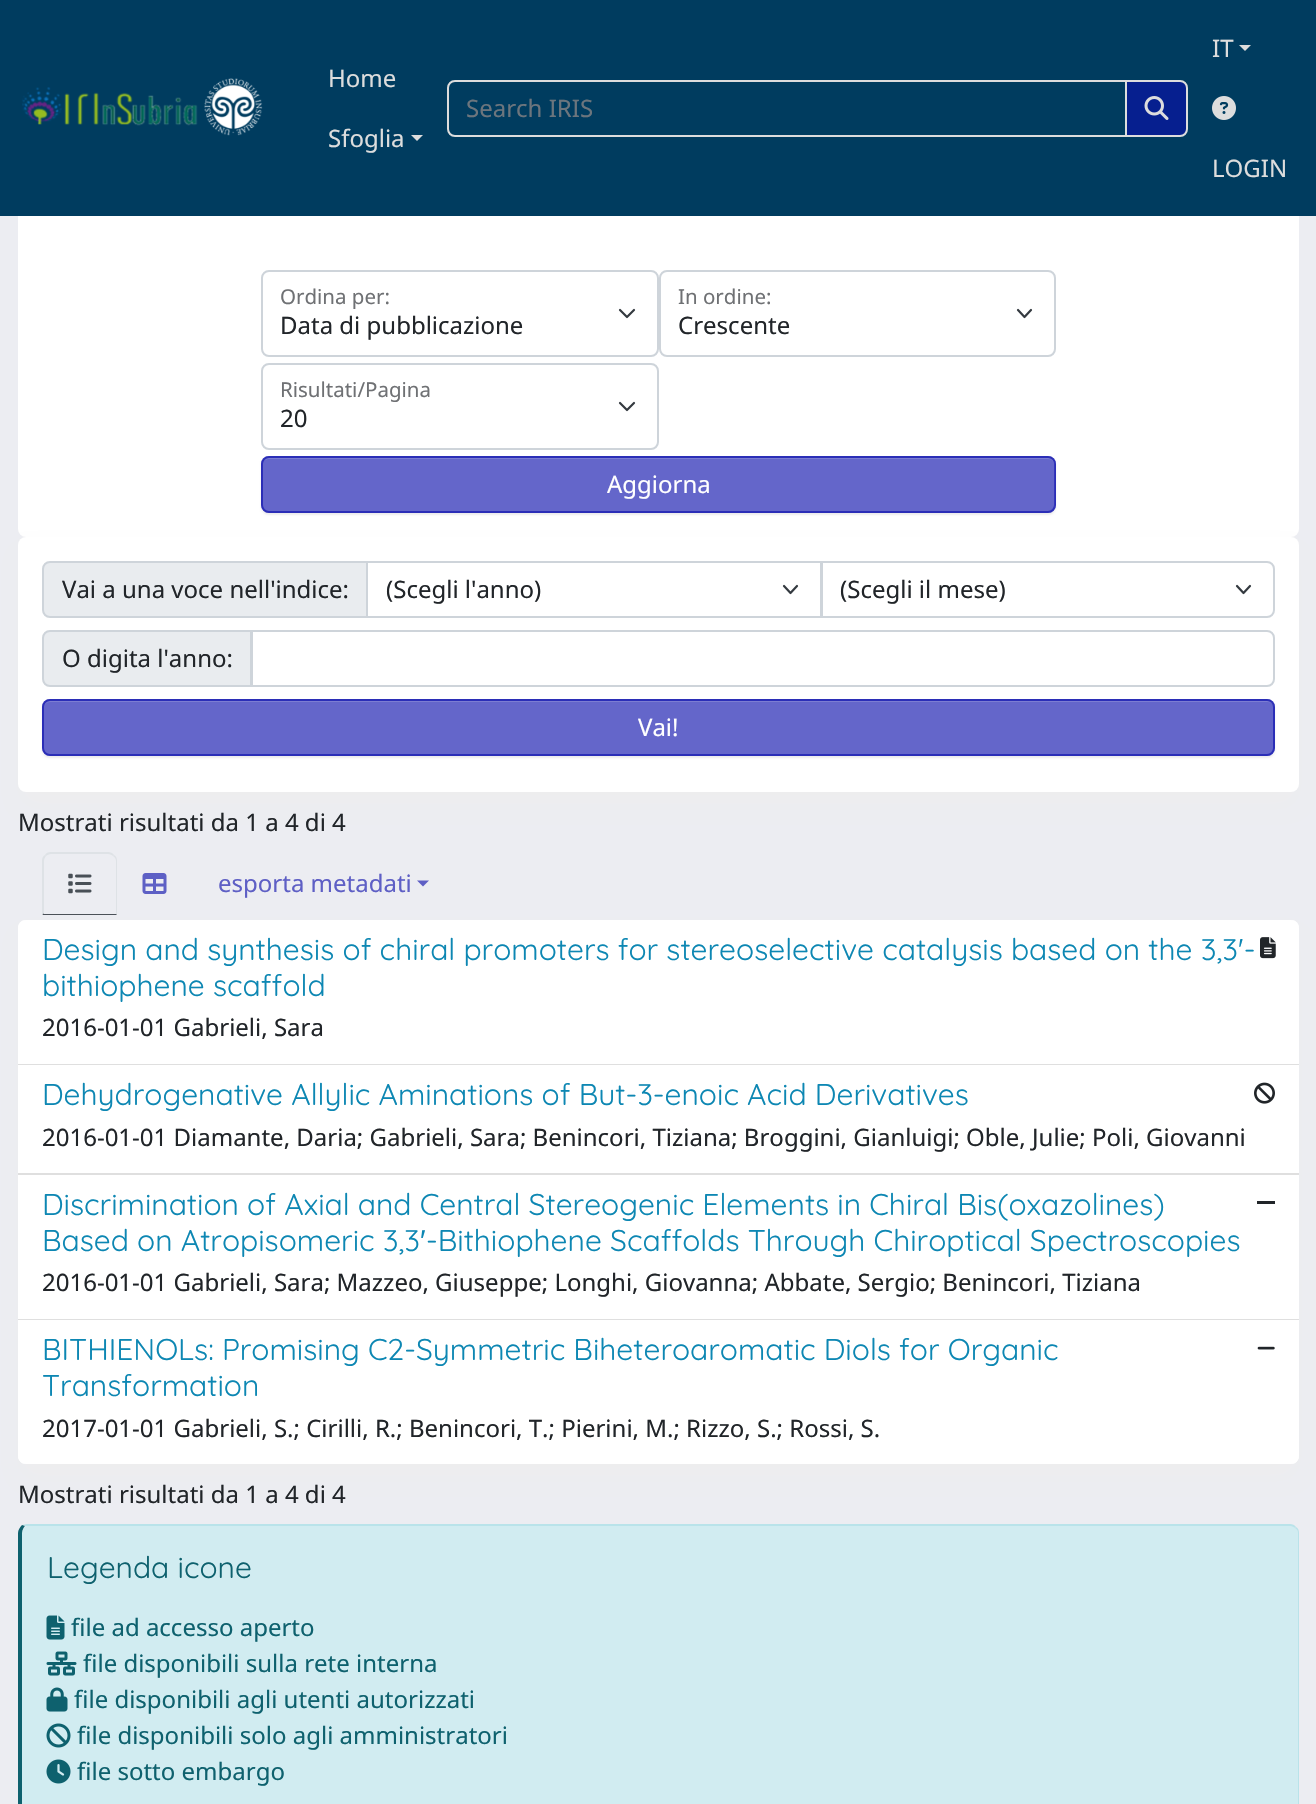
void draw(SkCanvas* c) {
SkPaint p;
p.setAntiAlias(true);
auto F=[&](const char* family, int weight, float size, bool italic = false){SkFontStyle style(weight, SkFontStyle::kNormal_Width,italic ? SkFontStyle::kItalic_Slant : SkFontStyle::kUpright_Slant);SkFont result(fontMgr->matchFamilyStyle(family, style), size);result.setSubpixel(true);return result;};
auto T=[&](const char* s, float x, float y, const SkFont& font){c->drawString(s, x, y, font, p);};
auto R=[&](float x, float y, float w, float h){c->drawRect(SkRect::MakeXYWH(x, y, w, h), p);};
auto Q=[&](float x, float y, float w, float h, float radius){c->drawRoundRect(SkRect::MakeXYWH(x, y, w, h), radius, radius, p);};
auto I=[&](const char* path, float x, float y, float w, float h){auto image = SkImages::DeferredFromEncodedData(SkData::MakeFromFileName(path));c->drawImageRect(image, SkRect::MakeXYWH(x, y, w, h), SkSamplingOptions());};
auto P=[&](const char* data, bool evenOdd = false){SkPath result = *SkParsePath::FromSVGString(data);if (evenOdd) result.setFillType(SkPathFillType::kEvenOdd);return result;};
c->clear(0xffecedf2);
p.setColor(0xffffffff);
Q(18,174,1281,363,8);
p.setColor(0xff003c5f);
R(0,0,1316,216);
I("1.png",22,78,241,58);
auto f1 = F("Noto Sans",400,24);
p.setColor(0xffdddddd);
T("Home",328,87,f1);
T("Sfoglia",328,147,f1);
c->drawPath(P("M411 135h12l-6 6z"),p);
p.setStroke(true);
p.setStrokeWidth(2);
c->drawPath(P("M455 81h671v55h-671c-4 0-7-3-7-7v-41c0-4 3-7 7-7z"),p);
p.setStroke(false);
p.setColor(0xff6c757d);
T("Search IRIS",466,117,f1);
p.setColor(0xa10a0cab);
c->drawPath(P("M1126 81h54c4 0 7 3 7 7v41c0 4-3 7-7 7h-54z"),p);
p.setStroke(true);
p.setColor(0xffdddddd);
c->drawPath(P("M1126 81h54c4 0 7 3 7 7v41c0 4-3 7-7 7h-54z"),p);
I("2.png",1144,96,25,24);
p.setStroke(false);
T("IT",1212,57,f1);
c->drawPath(P("M1239 45h12l-6 6z"),p);
I("3.png",1212,96,24,24);
T("LOGIN",1212,177,f1);
p.setStroke(true);
p.setStrokeWidth(2.2);
p.setStrokeCap(SkPaint::kRound_Cap);
p.setStrokeJoin(SkPaint::kRound_Join);
p.setColor(0xff343a40);
c->drawPath(P("M620 310l7 7l7-7"),p);
p.setStrokeWidth(2);
p.setStrokeCap(SkPaint::kButt_Cap);
p.setStrokeJoin(SkPaint::kMiter_Join);
p.setColor(0xffced4da);
c->drawRoundRect(SkRect::MakeXYWH(262,271,396,85),7,7,p);
auto f2 = F("Noto Sans",400,20.5);
p.setStroke(false);
p.setColor(0xff6f7174);
T("Ordina per:",280,304,f2);
p.setColor(0xff212529);
T("Data di pubblicazione",280,334,f1);
p.setStroke(true);
p.setStrokeWidth(2.2);
p.setStrokeCap(SkPaint::kRound_Cap);
p.setStrokeJoin(SkPaint::kRound_Join);
p.setColor(0xff343a40);
c->drawPath(P("M1018 310l6.5 7l6.5-7"),p);
p.setStrokeWidth(2);
p.setStrokeCap(SkPaint::kButt_Cap);
p.setStrokeJoin(SkPaint::kMiter_Join);
p.setColor(0xffced4da);
c->drawRoundRect(SkRect::MakeXYWH(660,271,395,85),7,7,p);
p.setStroke(false);
p.setColor(0xff6f7174);
T("In ordine:",678,304,f2);
p.setColor(0xff212529);
T("Crescente",678,334,f1);
p.setStroke(true);
p.setStrokeWidth(2.2);
p.setStrokeCap(SkPaint::kRound_Cap);
p.setStrokeJoin(SkPaint::kRound_Join);
p.setColor(0xff343a40);
c->drawPath(P("M620 403l7 7l7-7"),p);
p.setStrokeWidth(2);
p.setStrokeCap(SkPaint::kButt_Cap);
p.setStrokeJoin(SkPaint::kMiter_Join);
p.setColor(0xffced4da);
c->drawRoundRect(SkRect::MakeXYWH(262,364,396,85),7,7,p);
p.setStroke(false);
p.setColor(0xff6f7174);
T("Risultati/Pagina",280,397,f2);
p.setColor(0xff212529);
T("20",280,427,f1);
c->save();
c->clipPath(P("M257 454h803v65h-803zm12 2h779c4.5 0 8 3.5 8 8v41c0 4.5-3.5 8-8 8h-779c-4.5 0-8-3.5-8-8v-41c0-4.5 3.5-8 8-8z",true),true);
p.setColor(0x12000000);
p.setMaskFilter(SkMaskFilter::MakeBlur(kNormal_SkBlurStyle, 1));
c->drawRoundRect(SkRect::MakeXYWH(261,458,795,57),8,8,p);
p.setMaskFilter(nullptr);
c->restore();
p.setColor(0xa10a0cab);
Q(261,456,795,57,8);
p.setColor(0xff7c7dd2);
c->drawPath(P("M268 459h780c4 0 6 3 6 6v42c0 1 0 2-1 3c1-1 2-2 2-4v-42c0-3-3-6-6-6h-780c-2 0-4 1-5 3c1-1 3-2 4-2z"),p);
p.setStroke(true);
p.setColor(0xa10a0cab);
c->drawRoundRect(SkRect::MakeXYWH(262,457,793,55),7,7,p);
p.setStroke(false);
p.setColor(0xffffffff);
T("Aggiorna",607,493,f1);
p.setColor(0xffeeeeee);
p.setMaskFilter(SkMaskFilter::MakeBlur(kNormal_SkBlurStyle, 11));
c->drawRoundRect(SkRect::MakeXYWH(23,557,1272,246),3,3,p);
p.setMaskFilter(nullptr);
p.setColor(0xffffffff);
Q(18,537,1281,255,8);
p.setColor(0xffe9ecef);
c->drawPath(P("M50 562h317v55h-317c-4 0-7-3-7-7v-41c0-4 3-7 7-7z"),p);
p.setStroke(true);
p.setColor(0xffced4da);
c->drawPath(P("M50 562h317v55h-317c-4 0-7-3-7-7v-41c0-4 3-7 7-7z"),p);
p.setStroke(false);
p.setColor(0xff212529);
T("Vai a una voce nell'indice:",62,598,f1);
p.setStroke(true);
p.setStrokeWidth(2.2);
p.setStrokeCap(SkPaint::kRound_Cap);
p.setStrokeJoin(SkPaint::kRound_Join);
p.setColor(0xff343a40);
c->drawPath(P("M784 586l6.5 7l6.5-7"),p);
p.setStrokeWidth(2);
p.setStrokeCap(SkPaint::kButt_Cap);
p.setStrokeJoin(SkPaint::kMiter_Join);
p.setColor(0xffced4da);
c->drawRect(SkRect::MakeXYWH(367,562,454,55),p);
p.setStroke(false);
p.setColor(0xff212529);
T("(Scegli l'anno)",386,598,f1);
p.setColor(0xffffffff);
c->drawPath(P("M821 561h446c4.5 0 8 3.5 8 8v41c0 4.5-3.5 8-8 8h-446z"),p);
p.setStroke(true);
p.setStrokeWidth(2.2);
p.setStrokeCap(SkPaint::kRound_Cap);
p.setStrokeJoin(SkPaint::kRound_Join);
p.setColor(0xff343a40);
c->drawPath(P("M1237 586l6.5 7l6.5-7"),p);
p.setStrokeWidth(2);
p.setStrokeCap(SkPaint::kButt_Cap);
p.setStrokeJoin(SkPaint::kMiter_Join);
p.setColor(0xffced4da);
c->drawPath(P("M822 562h445c4 0 7 3 7 7v41c0 4-3 7-7 7h-445z"),p);
p.setStroke(false);
p.setColor(0xff212529);
T("(Scegli il mese)",840,598,f1);
p.setColor(0xffe9ecef);
c->drawPath(P("M50 631h201v55h-201c-4 0-7-3-7-7v-41c0-4 3-7 7-7z"),p);
p.setStroke(true);
p.setColor(0xffced4da);
c->drawPath(P("M50 631h201v55h-201c-4 0-7-3-7-7v-41c0-4 3-7 7-7z"),p);
p.setStroke(false);
p.setColor(0xff212529);
T("O digita l'anno:",62,667,f1);
p.setStroke(true);
p.setColor(0xffced4da);
c->drawPath(P("M252 631h1015c4 0 7 3 7 7v41c0 4-3 7-7 7h-1015z"),p);
c->save();
c->clipPath(P("M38 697h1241v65h-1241zm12 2h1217c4.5 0 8 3.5 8 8v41c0 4.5-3.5 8-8 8h-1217c-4.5 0-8-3.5-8-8v-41c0-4.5 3.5-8 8-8z",true),true);
p.setStroke(false);
p.setColor(0x12000000);
p.setMaskFilter(SkMaskFilter::MakeBlur(kNormal_SkBlurStyle, 1));
c->drawRoundRect(SkRect::MakeXYWH(42,701,1233,57),8,8,p);
p.setMaskFilter(nullptr);
c->restore();
p.setColor(0xa10a0cab);
Q(42,699,1233,57,8);
p.setColor(0xff7c7dd2);
c->drawPath(P("M50 702h1218c3 0 6 3 6 6c0-4-2-7-6-7h-1218c-4 0-6 3-6 7c0-3 2-6 6-6z"),p);
p.setStroke(true);
p.setColor(0xa10a0cab);
c->drawRoundRect(SkRect::MakeXYWH(43,700,1231,55),7,7,p);
p.setStroke(false);
p.setColor(0xffffffff);
T("Vai!",638,736,f1);
p.setColor(0xff212529);
T("Mostrati risultati da 1 a 4 di 4",18,831,f1);
p.setColor(0xffdee2e6);
c->drawPath(P("M51 852c-3 0-5 1-6 3l1 1c1-1 3-2 5-2h57c2 0 4 1 5 2l1-1c-1-2-4-3-6-3z"),p);
c->drawPath(P("M117 915v-54c0-3-1-5-3-6l-1 1c2 1 3 3 3 5v53z"),p);
p.setColor(0xff495057);
c->drawPath(P("M117 915l-1-1h-72v-1l-2 2z"),p);
p.setColor(0xffdee2e6);
c->drawPath(P("M42 915l2-2v-52c0-2 1-4 2-5l-1-1c-2 1-3 3-3 6z"),p);
I("4.png",68,873,24,21);
I("5.png",142,873,25,21);
p.setColor(0xff5e5fc5);
T("esporta metadati",218,892,f1);
c->drawPath(P("M417 880.5h12l-6 6z"),p);
p.setColor(0xffeeeeee);
p.setMaskFilter(SkMaskFilter::MakeBlur(kNormal_SkBlurStyle, 11));
c->drawRoundRect(SkRect::MakeXYWH(23,939,1272,536),3,3,p);
p.setMaskFilter(nullptr);
p.setColor(0xffffffff);
Q(18,920,1281,544,8);
c->drawPath(P("M26 920h1265c4.5 0 8 3.5 8 8v137h-1281v-137c0-4.5 3.5-8 8-8z"),p);
p.setColor(0xffdfdfdf);
R(18,1064,1281,1);
auto f3 = F("Quicksand",300,30);
p.setColor(0xff0d87b3);
T("Design and synthesis of chiral promoters for stereoselective catalysis based on the 3,3'-",42,960,f3);
T("bithiophene scaffold",42,996,f3);
I("6.png",1260,937,16,22);
p.setColor(0xff212529);
T("2016-01-01 Gabrieli, Sara",42,1036,f1);
p.setColor(0xffdfdfdf);
R(18,1173,1281,2);
p.setColor(0xff0d87b3);
T("Dehydrogenative Allylic Aminations of But-3-enoic Acid Derivatives",42,1105,f3);
I("7.png",1254,1082,21,22);
p.setColor(0xff212529);
T("2016-01-01 Diamante, Daria; Gabrieli, Sara; Benincori, Tiziana; Broggini, Gianluigi; Oble, Julie; Poli, Giovanni",42,1146,f1);
p.setColor(0xffdfdfdf);
R(18,1319,1281,1);
p.setColor(0xff0d87b3);
T("Discrimination of Axial and Central Stereogenic Elements in Chiral Bis(oxazolines)",42,1215,f3);
T("Based on Atropisomeric 3,3",42,1251,f3);
auto f4 = F("Liberation Sans",400,30);
T("′",420,1251,f4);
T("-Bithiophene Scaffolds Through Chiroptical Spectroscopies",426,1251,f3);
p.setColor(0xff212529);
R(1257,1201,18,3);
T("2016-01-01 Gabrieli, Sara; Mazzeo, Giuseppe; Longhi, Giovanna; Abbate, Sergio; Benincori, Tiziana",42,1291,f1);
p.setColor(0xffffffff);
c->drawPath(P("M18 1320h1281v136c0 4.5-3.5 8-8 8h-1265c-4.5 0-8-3.5-8-8z"),p);
p.setColor(0xff0d87b3);
T("BITHIENOLs: Promising C2-Symmetric Biheteroaromatic Diols for Organic",42,1360,f3);
T("Transformation",42,1396,f3);
I("8.png",1257,1346,18,4);
p.setColor(0xff212529);
T("2017-01-01 Gabrieli, S.; Cirilli, R.; Benincori, T.; Pierini, M.; Rizzo, S.; Rossi, S.",42,1437,f1);
T("Mostrati risultati da 1 a 4 di 4",18,1503,f1);
p.setColor(0xffd1ecf1);
c->drawPath(P("M27 1526h1263c4 0 8 3 8 7v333c0 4-4 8-8 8h-1263c-2 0-5-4-5-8v-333c0-4 3-7 5-7z"),p);
p.setColor(0xffb9e3ea);
c->drawPath(P("M27 1524c-2 0-3 1-5 1l3 1h2h1263c2 0 4 1 5 2l1-1c-1-2-4-3-6-3z"),p);
c->drawPath(P("M1299 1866v-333c0-3-1-5-3-6l-1 1c2 1 3 3 3 5v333c0 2-1 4-2 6c2-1 3-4 3-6z"),p);
p.setColor(0xff0e616e);
c->drawPath(P("M18 1533v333c0 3 2 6 4 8l3-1c-2-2-3-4-3-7v-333c0-3 2-6 3-7l-3-1c-2 2-4 5-4 8z"),p);
T("Legenda icone",47,1578,f3);
I("9.png",46,1615,19,25);
T("file ad accesso aperto",71,1636,f1);
I("10.png",46,1651,31,25);
T("file disponibili sulla rete interna",83,1672,f1);
I("11.png",46,1687,22,25);
T("file disponibili agli utenti autorizzati",74,1708,f1);
I("12.png",46,1723,25,25);
T("file disponibili solo agli amministratori",77,1744,f1);
I("13.png",46,1759,25,25);
T("file sotto embargo",77,1780,f1);
}
